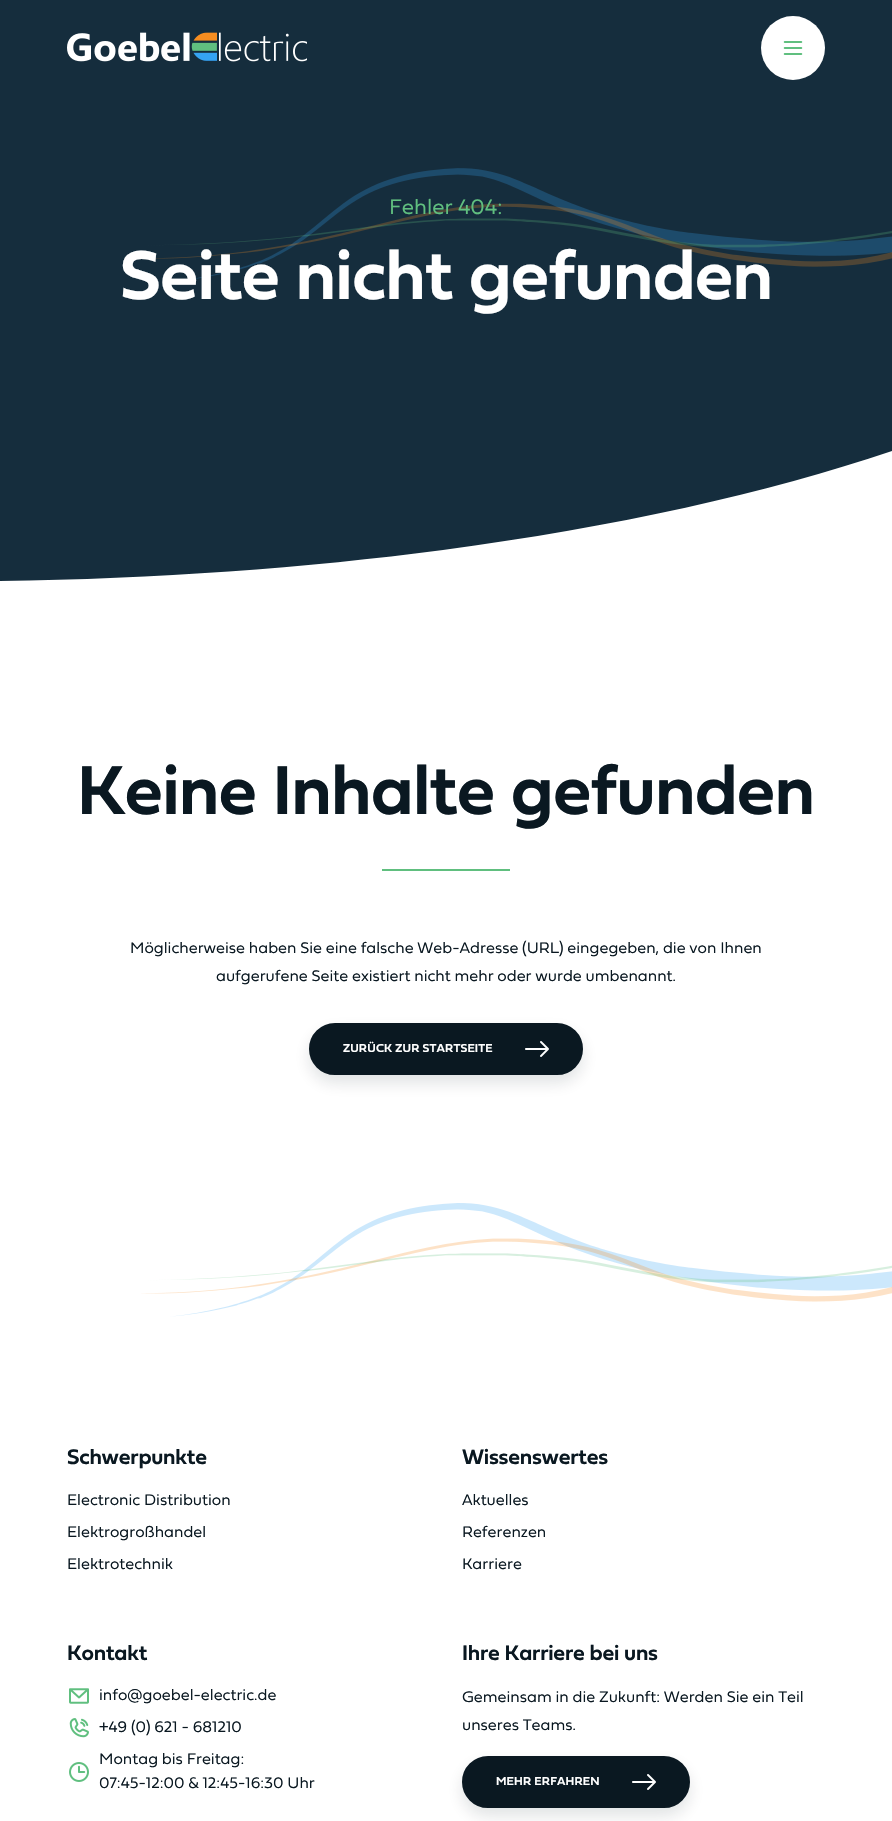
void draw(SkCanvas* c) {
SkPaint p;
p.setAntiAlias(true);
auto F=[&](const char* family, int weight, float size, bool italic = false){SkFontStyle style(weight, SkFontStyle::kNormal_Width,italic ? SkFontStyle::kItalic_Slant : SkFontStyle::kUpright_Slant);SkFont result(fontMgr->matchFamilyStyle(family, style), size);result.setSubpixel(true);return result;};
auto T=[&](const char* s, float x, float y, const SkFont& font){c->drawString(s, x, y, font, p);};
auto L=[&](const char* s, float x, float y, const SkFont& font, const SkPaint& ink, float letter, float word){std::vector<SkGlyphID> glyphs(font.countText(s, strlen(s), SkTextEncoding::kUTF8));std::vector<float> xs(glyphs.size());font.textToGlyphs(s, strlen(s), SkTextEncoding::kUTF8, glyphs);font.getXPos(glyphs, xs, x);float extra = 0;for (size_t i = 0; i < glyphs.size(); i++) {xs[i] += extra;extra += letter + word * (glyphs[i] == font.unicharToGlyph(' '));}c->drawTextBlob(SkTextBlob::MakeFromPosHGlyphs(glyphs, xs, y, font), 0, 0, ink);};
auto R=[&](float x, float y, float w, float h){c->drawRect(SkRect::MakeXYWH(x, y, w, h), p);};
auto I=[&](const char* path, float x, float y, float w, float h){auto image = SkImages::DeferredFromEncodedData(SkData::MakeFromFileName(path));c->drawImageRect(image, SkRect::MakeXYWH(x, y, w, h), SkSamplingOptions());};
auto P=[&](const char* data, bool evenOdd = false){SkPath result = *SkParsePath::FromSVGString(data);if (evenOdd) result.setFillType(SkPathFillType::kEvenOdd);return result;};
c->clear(0xffffffff);
p.setColor(0xff152d3d);
R(0,0,892,581);
I("1.png",67,32,240,30);
p.setColor(0xffffffff);
c->drawCircle(793,48,32,p);
I("2.png",783,41,20,14);
I("3.png",141,168,751,114);
auto f1 = F("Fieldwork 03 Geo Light",300,22);
p.setColor(0xff60bf7f);
T("Fehler 404:",389,214,f1);
auto f2 = F("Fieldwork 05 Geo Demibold",600,72);
p.setColor(0xffffffff);
L("Seite nicht gefunden",120,299,f2,p,-.9,0);
c->drawPath(P("M892 629v-176c-124 54-277 81-449 109c-137 24-286 38-443 41v26z"),p);
c->drawPath(P("M443 550c-137 18-286 29-443 31v45c157-3 306-17 443-40c172-29 325-73 449-127v-8c-124 42-277 76-449 99z"),p);
p.setColor(0xff0a1821);
L("Keine Inhalte gefunden",77,814,f2,p,-.9,0);
p.setColor(0xff60bf7f);
R(382,869,128,2);
auto f3 = F("Fieldwork 03 Geo Light",300,16);
p.setColor(0xff0a1821);
T("Möglicherweise haben Sie eine falsche Web-Adresse (URL) eingegeben, die von Ihnen",130,953,f3);
T("aufgerufene Seite existiert nicht mehr oder wurde umbenannt.",216,981,f3);
p.setColor(0x1f0a1821);
p.setMaskFilter(SkMaskFilter::MakeBlur(kNormal_SkBlurStyle, 8));
c->drawRoundRect(SkRect::MakeXYWH(309,1031,274,52),26,26,p);
p.setMaskFilter(nullptr);
p.setColor(0xff0a1821);
c->drawRoundRect(SkRect::MakeXYWH(310,1024,272,50),25,25,p);
p.setStroke(true);
p.setStrokeWidth(2);
c->drawRoundRect(SkRect::MakeXYWH(310,1024,272,50),25,25,p);
auto f4 = F("Fieldwork 05 Geo Demibold",600,12);
p.setStroke(false);
p.setColor(0xffffffff);
L("ZURÜCK ZUR STARTSEITE",343,1052,f4,p,.15,0);
I("4.png",525,1041,24,16);
I("5.png",141,1203,751,114);
auto f5 = F("Fieldwork 05 Geo Demibold",600,22);
p.setColor(0xff0a1821);
L("Schwerpunkte",67,1464,f5,p,-.25,0);
T("Electronic Distribution",67,1505,f3);
T("Elektrogroßhandel",67,1537,f3);
T("Elektrotechnik",67,1569,f3);
L("Wissenswertes",462,1464,f5,p,-.25,0);
T("Aktuelles",462,1505,f3);
T("Referenzen",462,1537,f3);
T("Karriere",462,1569,f3);
L("Kontakt",67,1660,f5,p,-.25,0);
I("6.png",69,1688,20,16);
T("info@goebel-electric.de",99,1700,f3);
I("7.png",69,1718,20,20);
T("+49 (0) 621 - 681210",99,1732,f3);
I("8.png",69,1762,20,20);
T("Montag bis Freitag:",99,1764,f3);
T("07:45-12:00 & 12:45-16:30 Uhr",99,1788,f3);
L("Ihre Karriere bei uns",462,1660,f5,p,-.25,0);
T("Gemeinsam in die Zukunft: Werden Sie ein Teil",462,1702,f3);
T("unseres Teams.",462,1730,f3);
p.setColor(0x1f0a1821);
p.setMaskFilter(SkMaskFilter::MakeBlur(kNormal_SkBlurStyle, 8));
c->drawRoundRect(SkRect::MakeXYWH(462,1764,228,52),26,26,p);
p.setMaskFilter(nullptr);
p.setColor(0xff0a1821);
c->drawRoundRect(SkRect::MakeXYWH(463,1757,226,50),25,25,p);
p.setStroke(true);
c->drawRoundRect(SkRect::MakeXYWH(463,1757,226,50),25,25,p);
p.setStroke(false);
p.setColor(0xffffffff);
L("MEHR ERFAHREN",496,1785,f4,p,.15,0);
I("4.png",632,1774,24,16);
}
